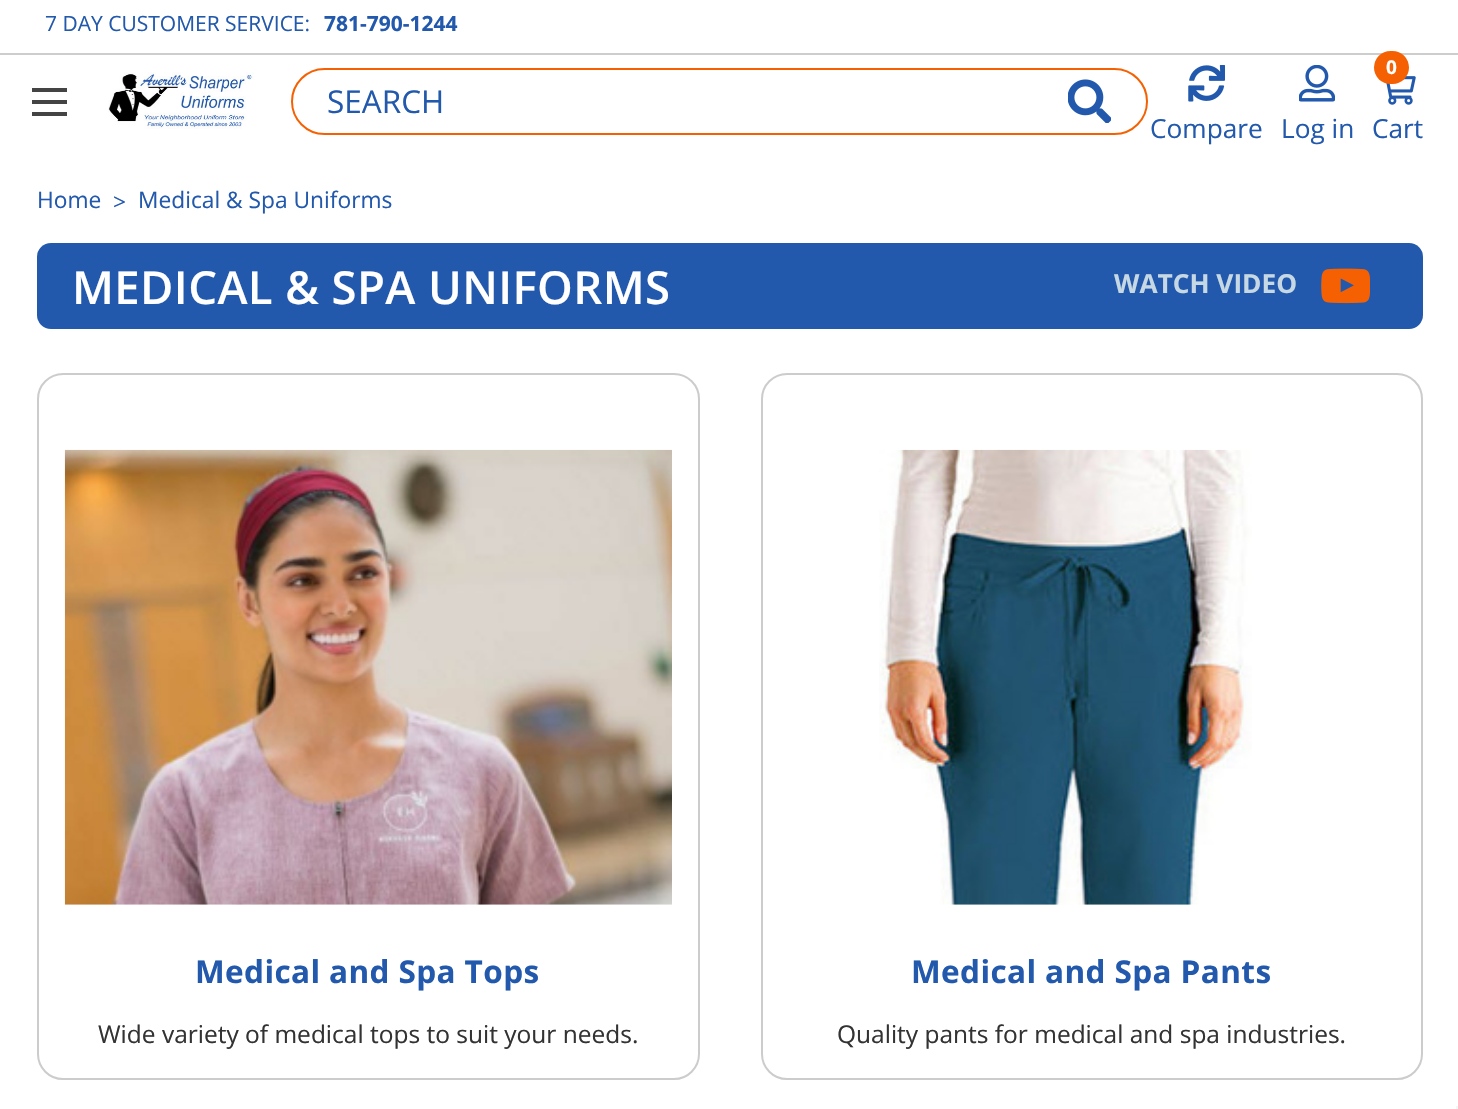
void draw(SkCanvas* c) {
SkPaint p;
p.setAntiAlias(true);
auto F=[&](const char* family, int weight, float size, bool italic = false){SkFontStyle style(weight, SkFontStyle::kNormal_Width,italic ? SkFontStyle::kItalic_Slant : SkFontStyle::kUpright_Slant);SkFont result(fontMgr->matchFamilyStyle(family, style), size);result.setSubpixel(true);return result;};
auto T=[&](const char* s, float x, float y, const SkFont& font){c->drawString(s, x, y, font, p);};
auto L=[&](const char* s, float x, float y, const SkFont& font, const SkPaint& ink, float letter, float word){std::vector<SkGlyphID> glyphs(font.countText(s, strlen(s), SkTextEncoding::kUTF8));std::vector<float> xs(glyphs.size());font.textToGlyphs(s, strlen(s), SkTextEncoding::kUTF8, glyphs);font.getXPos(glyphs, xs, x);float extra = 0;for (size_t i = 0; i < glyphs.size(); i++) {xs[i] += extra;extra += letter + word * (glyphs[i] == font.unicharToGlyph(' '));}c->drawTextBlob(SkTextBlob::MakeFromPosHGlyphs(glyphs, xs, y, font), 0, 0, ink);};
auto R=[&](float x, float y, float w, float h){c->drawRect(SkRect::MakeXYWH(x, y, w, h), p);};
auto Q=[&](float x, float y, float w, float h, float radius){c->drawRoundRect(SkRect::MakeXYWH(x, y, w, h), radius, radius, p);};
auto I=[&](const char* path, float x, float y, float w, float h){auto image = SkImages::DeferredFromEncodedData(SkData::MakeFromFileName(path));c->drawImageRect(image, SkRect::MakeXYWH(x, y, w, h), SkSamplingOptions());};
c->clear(0xffffffff);
p.setColor(0xffcccdcc);
R(0,53,1458,2);
auto f1 = F("Open Sans",400,21);
p.setColor(0xff2259ac);
T("7 DAY CUSTOMER SERVICE:",45,31,f1);
auto f2 = F("Open Sans",700,21);
T("781-790-1244",324,31,f2);
p.setColor(0xff444444);
R(32,100,35,4);
R(32,88,35,4);
R(32,112,35,4);
I("1.png",108,72,146,57);
p.setStroke(true);
p.setStrokeWidth(2);
p.setColor(0xfff56102);
c->drawRoundRect(SkRect::MakeXYWH(292,69,855,65),32.5,32.5,p);
auto f3 = F("Open Sans",400,31.5);
p.setStroke(false);
p.setColor(0xff2259ac);
T("SEARCH",327,113,f3);
I("2.png",1068,79,43,44);
I("3.png",1188,65,37,37);
auto f4 = F("Open Sans",400,26.25);
T("Compare",1150,138,f4);
I("4.png",1299,65,36,37);
T("Log in",1281,138,f4);
I("5.png",1386,76,30,29);
p.setColor(0xfff56102);
Q(1374,51,35,33,16.5);
auto f5 = F("Open Sans",700,19);
p.setColor(0xffffffff);
T("0",1386,74,f5);
p.setColor(0xff2259ac);
T("Cart",1372,138,f4);
auto f6 = F("Open Sans",400,22.75);
T("Home",37,208,f6);
T(">",113,210,f6);
T("Medical & Spa Uniforms",138,208,f6);
Q(37,243,1386,86,14);
auto f7 = F("Open Sans",600,45.5);
p.setColor(0xffffffff);
L("MEDICAL & SPA UNIFORMS",72,304,f7,p,.4,0);
auto f8 = F("Open Sans",700,26.25);
p.setColor(0xffc6d8e4);
T("WATCH VIDEO",1114,293,f8);
I("6.png",1321,268,49,36);
p.setStroke(true);
p.setColor(0xffcccccc);
c->drawRoundRect(SkRect::MakeXYWH(38,374,661,705),25,25,p);
I("7.png",64,449,608,456);
auto f9 = F("Open Sans",700,31.5);
p.setStroke(false);
p.setColor(0xff2259ac);
L("Medical and Spa Tops",195,983,f9,p,.4,0);
auto f10 = F("Open Sans",400,24.5);
p.setColor(0xff333333);
T("Wide variety of medical tops to suit your needs.",98,1043,f10);
p.setStroke(true);
p.setColor(0xffcccccc);
c->drawRoundRect(SkRect::MakeXYWH(762,374,660,705),25,25,p);
I("8.png",879,449,373,456);
p.setStroke(false);
p.setColor(0xff2259ac);
L("Medical and Spa Pants",911,983,f9,p,.4,0);
p.setColor(0xff333333);
T("Quality pants for medical and spa industries.",837,1043,f10);
p.setColor(0xfff5f5f5);
R(1456,1106,2,3);
}
